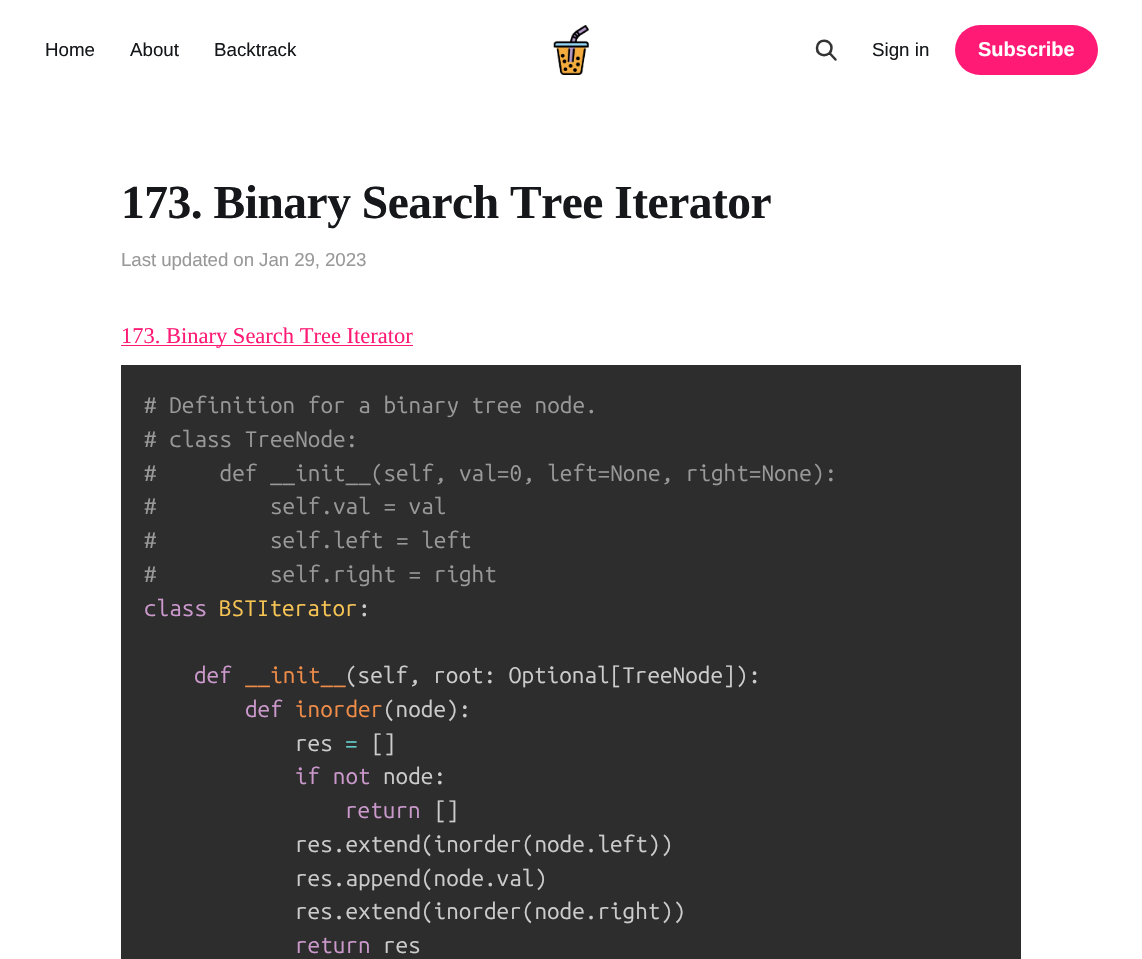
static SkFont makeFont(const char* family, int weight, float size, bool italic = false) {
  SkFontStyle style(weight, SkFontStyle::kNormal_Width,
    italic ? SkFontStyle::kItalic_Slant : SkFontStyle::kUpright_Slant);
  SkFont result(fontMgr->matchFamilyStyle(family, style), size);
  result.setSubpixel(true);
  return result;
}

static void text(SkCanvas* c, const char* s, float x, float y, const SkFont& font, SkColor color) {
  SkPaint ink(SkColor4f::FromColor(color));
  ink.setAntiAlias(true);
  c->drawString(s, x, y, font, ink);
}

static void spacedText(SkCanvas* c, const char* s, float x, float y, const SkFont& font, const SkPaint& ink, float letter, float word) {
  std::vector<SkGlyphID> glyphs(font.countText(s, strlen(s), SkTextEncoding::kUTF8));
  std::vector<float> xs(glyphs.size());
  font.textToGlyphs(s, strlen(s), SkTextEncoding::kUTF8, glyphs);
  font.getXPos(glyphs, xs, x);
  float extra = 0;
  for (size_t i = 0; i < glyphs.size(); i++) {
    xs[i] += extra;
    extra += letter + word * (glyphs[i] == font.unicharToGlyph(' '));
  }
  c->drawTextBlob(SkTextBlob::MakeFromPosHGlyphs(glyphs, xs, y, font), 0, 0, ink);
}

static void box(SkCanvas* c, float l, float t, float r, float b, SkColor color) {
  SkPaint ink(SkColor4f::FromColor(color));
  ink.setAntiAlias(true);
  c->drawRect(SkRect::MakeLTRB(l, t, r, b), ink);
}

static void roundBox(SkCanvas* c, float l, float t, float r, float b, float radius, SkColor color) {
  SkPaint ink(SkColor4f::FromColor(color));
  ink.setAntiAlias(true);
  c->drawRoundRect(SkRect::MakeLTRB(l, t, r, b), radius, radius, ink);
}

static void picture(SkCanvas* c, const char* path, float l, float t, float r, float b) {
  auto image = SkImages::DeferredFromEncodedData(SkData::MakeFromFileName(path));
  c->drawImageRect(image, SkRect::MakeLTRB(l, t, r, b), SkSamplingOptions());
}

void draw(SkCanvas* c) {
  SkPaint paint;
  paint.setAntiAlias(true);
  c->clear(0xffffffff);
  SkFont face1 = makeFont("Liberation Sans", 400, 18.75f);
  text(c, "Home", 45, 56, face1, 0xff15171a);
  text(c, "About", 130, 56, face1, 0xff15171a);
  text(c, "Backtrack", 214, 56, face1, 0xff15171a);
  picture(c, "img_01.png", 553, 25, 589, 75);
  paint.setStyle(SkPaint::kStroke_Style);
  paint.setStrokeWidth(2.5f);
  paint.setStrokeCap(SkPaint::kRound_Cap);
  paint.setStrokeJoin(SkPaint::kRound_Join);
  paint.setColor(0xff333333);
  c->drawPath(SkPathBuilder().moveTo(835.5f, 59.5f).lineTo(829.5f, 53).close().moveTo(831.5f, 48).cubicTo(831.5f, 57.5f, 816.5f, 57.5f, 817, 48).cubicTo(817, 38, 831.5f, 38.5f, 831.5f, 48).close().detach(), paint);
  text(c, "Sign in", 872, 56, face1, 0xff15171a);
  roundBox(c, 955, 25, 1098, 75, 25, 0xffff1a75);
  SkFont face2 = makeFont("Liberation Sans", 700, 20);
  text(c, "Subscribe", 978, 56, face2, 0xffffffff);
  SkFont face3 = makeFont("Liberation Serif", 700, 47.5f);
  paint.setStyle(SkPaint::kFill_Style);
  paint.setColor(0xff15171a);
  spacedText(c, "173. Binary Search Tree Iterator", 121, 218, face3, paint, -0.5f, 0);
  paint.setColor(0xff999999);
  spacedText(c, "Last updated on Jan 29, 2023", 121, 266, face1, paint, -0.1f, 0);
  box(c, 121, 345, 413, 346, 0xffff1a75);
  SkFont face4 = makeFont("Liberation Serif", 400, 22.5f);
  text(c, "173. Binary Search Tree Iterator", 121, 343, face4, 0xffff1a75);
  box(c, 121, 365, 1021, 959, 0xff2d2d2d);
  SkFont face5 = makeFont("Ubuntu Mono", 400, 22.5f);
  text(c, "# Definition for a binary tree node.", 144, 413, face5, 0xff999999);
  text(c, "# class TreeNode:", 144, 447, face5, 0xff999999);
  text(c, "#     def __init__(self, val=0, left=None, right=None):", 144, 481, face5, 0xff999999);
  text(c, "#         self.val = val", 144, 514, face5, 0xff999999);
  text(c, "#         self.left = left", 144, 548, face5, 0xff999999);
  text(c, "#         self.right = right", 144, 582, face5, 0xff999999);
  text(c, "class", 144, 616, face5, 0xffcc99cd);
  text(c, "BSTIterator", 219, 616, face5, 0xfff8c555);
  text(c, ":", 358, 616, face5, 0xffcccccc);
  text(c, "def", 194, 683, face5, 0xffcc99cd);
  text(c, "__init__", 245, 683, face5, 0xfff08d49);
  text(c, "(self, root: Optional[TreeNode]):", 345, 683, face5, 0xffcccccc);
  text(c, "def", 245, 717, face5, 0xffcc99cd);
  text(c, "inorder", 295, 717, face5, 0xfff08d49);
  text(c, "(node):", 383, 717, face5, 0xffcccccc);
  text(c, "res", 295, 751, face5, 0xffcccccc);
  text(c, "=", 345, 751, face5, 0xff67cdcc);
  text(c, "[]", 371, 751, face5, 0xffcccccc);
  text(c, "if not", 295, 784, face5, 0xffcc99cd);
  text(c, "node:", 383, 784, face5, 0xffcccccc);
  text(c, "return", 345, 818, face5, 0xffcc99cd);
  text(c, "[]", 434, 818, face5, 0xffcccccc);
  text(c, "res.extend(inorder(node.left))", 295, 852, face5, 0xffcccccc);
  text(c, "res.append(node.val)", 295, 886, face5, 0xffcccccc);
  text(c, "res.extend(inorder(node.right))", 295, 919, face5, 0xffcccccc);
  text(c, "return", 295, 953, face5, 0xffcc99cd);
  text(c, "res", 383, 953, face5, 0xffcccccc);
}
